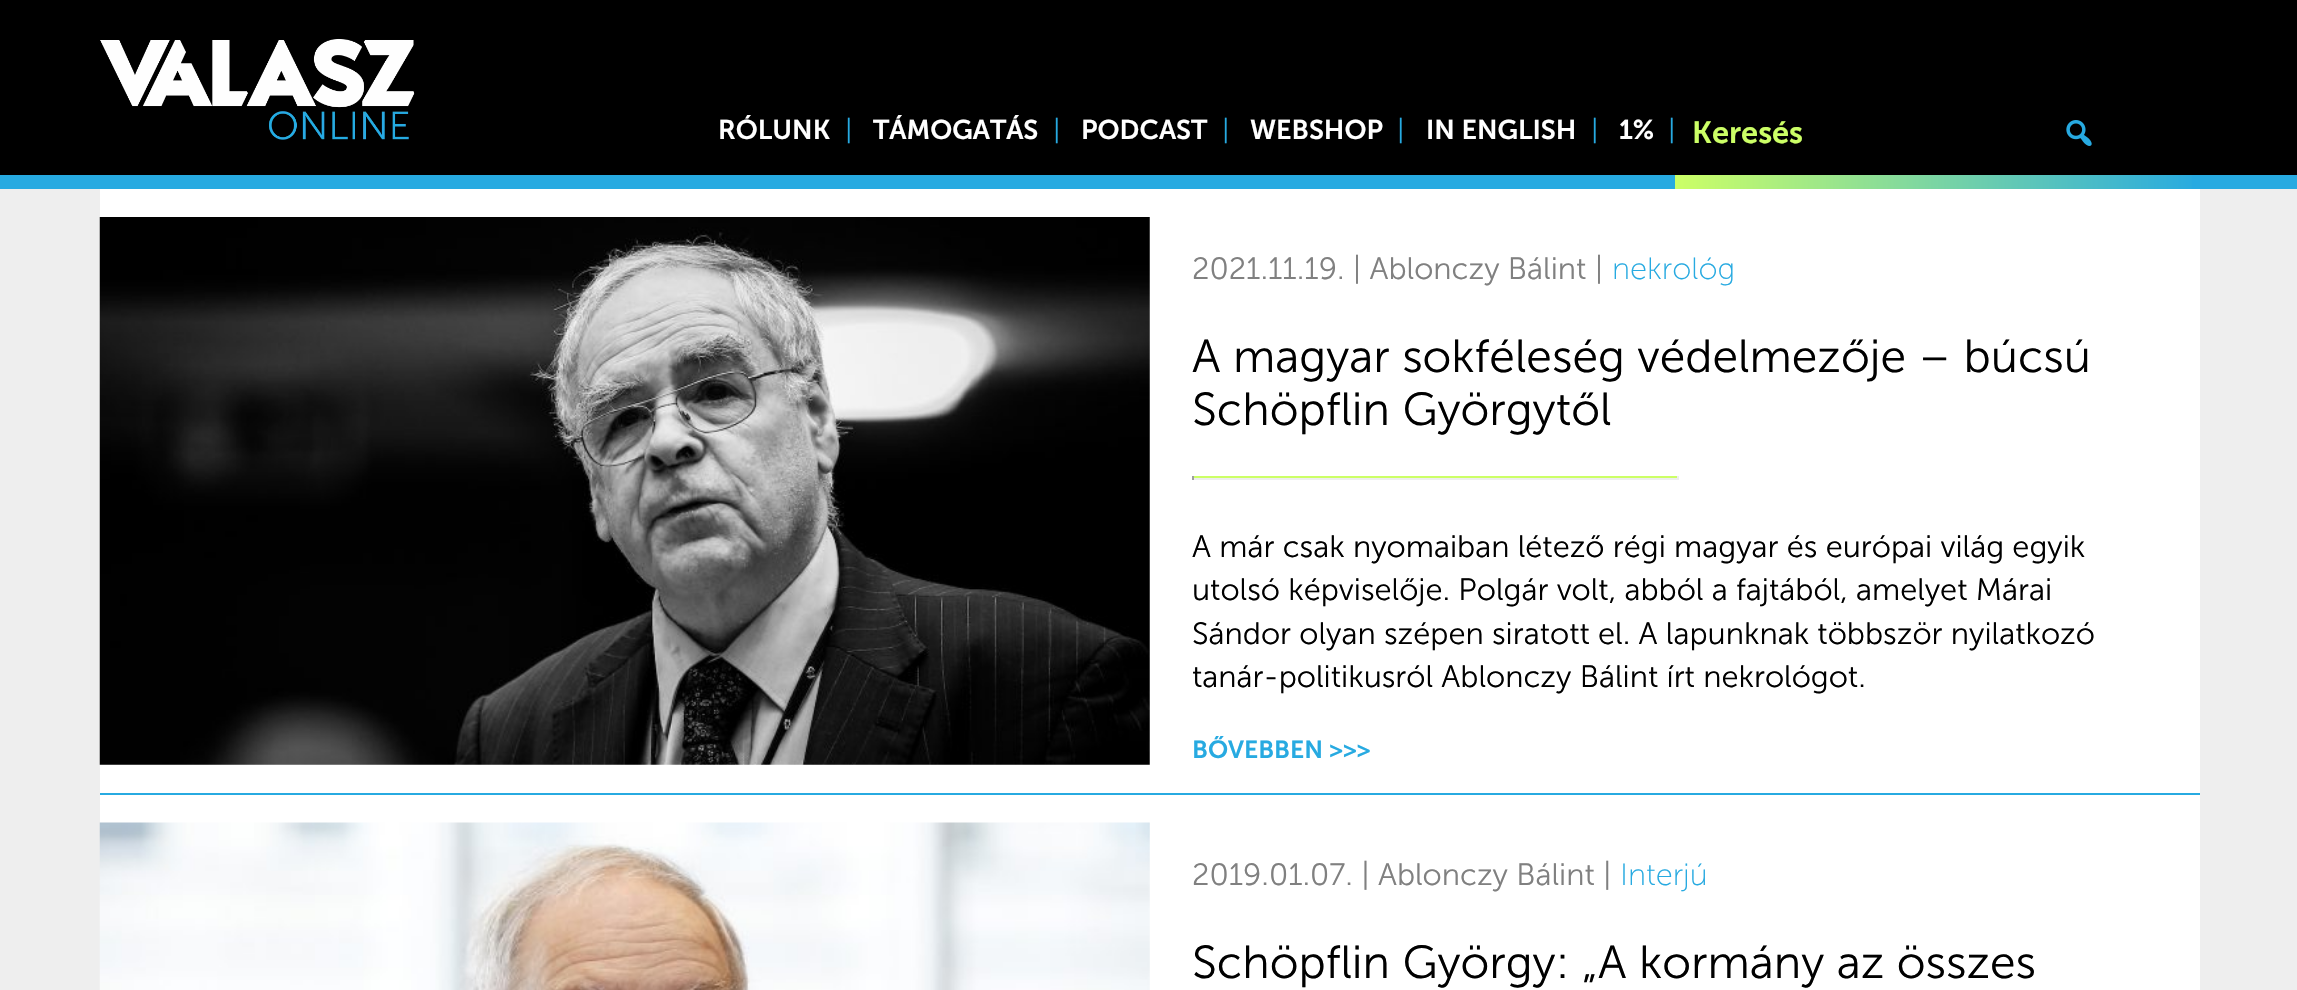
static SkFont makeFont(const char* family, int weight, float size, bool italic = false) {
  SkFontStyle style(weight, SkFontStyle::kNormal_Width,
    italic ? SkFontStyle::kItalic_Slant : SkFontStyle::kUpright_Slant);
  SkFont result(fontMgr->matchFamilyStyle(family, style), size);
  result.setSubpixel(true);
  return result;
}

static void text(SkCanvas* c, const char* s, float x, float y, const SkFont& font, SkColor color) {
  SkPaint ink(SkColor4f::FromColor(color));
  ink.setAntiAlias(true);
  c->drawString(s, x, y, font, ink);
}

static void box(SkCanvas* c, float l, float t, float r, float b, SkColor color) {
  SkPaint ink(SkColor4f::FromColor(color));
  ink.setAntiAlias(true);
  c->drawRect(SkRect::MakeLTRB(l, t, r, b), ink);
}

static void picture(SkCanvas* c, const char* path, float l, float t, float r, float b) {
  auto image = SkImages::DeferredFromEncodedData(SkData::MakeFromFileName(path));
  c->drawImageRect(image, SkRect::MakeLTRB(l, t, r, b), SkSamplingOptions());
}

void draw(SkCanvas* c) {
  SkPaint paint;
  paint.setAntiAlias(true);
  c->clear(0xffeeeeee);
  box(c, 0, 0, 2297, 175, 0xff000000);
  picture(c, "img_01.png", 100, 38, 415, 140);
  SkFont face1 = makeFont("Museo Sans", 600, 27);
  text(c, "RÓLUNK", 718, 139, face1, 0xffffffff);
  SkFont face2 = makeFont("Museo Sans", 300, 27);
  text(c, "|", 845, 139, face2, 0xff27aae1);
  text(c, "TÁMOGATÁS", 873, 139, face1, 0xffffffff);
  text(c, "|", 1053, 139, face2, 0xff27aae1);
  text(c, "PODCAST", 1081, 139, face1, 0xffffffff);
  text(c, "|", 1222, 139, face2, 0xff27aae1);
  text(c, "WEBSHOP", 1250, 139, face1, 0xffffffff);
  text(c, "|", 1397, 139, face2, 0xff27aae1);
  text(c, "IN ENGLISH", 1426, 139, face1, 0xffffffff);
  text(c, "|", 1591, 139, face2, 0xff27aae1);
  text(c, "1%", 1619, 139, face1, 0xffffffff);
  text(c, "|", 1668, 139, face2, 0xff27aae1);
  SkFont face3 = makeFont("Museo Sans", 600, 30.8f);
  text(c, "Keresés", 1692, 143, face3, 0xffccff66);
  picture(c, "img_02.png", 2066, 120, 2092, 146);
  box(c, 0, 175, 2297, 189, 0xff27aae1);
  {
    const SkColor colors[] = {0xffccff66, 0xff27aae1};
    const float stops[] = {0, 1};
    const SkPoint ends[] = {{1675, 182}, {2200, 182}};
    paint.setShader(SkGradientShader::MakeLinear(ends, colors, stops, 2, SkTileMode::kClamp));
    paint.setAlpha(255);
  }
  c->drawRect(SkRect::MakeLTRB(1675, 175, 2192, 189), paint);
  box(c, 100, 189, 2200, 990, 0xffffffff);
  box(c, 100, 793, 2200, 795, 0xff27aae1);
  picture(c, "img_03.png", 99, 217, 1150, 765);
  SkFont face4 = makeFont("Museo Sans", 300, 30.8f);
  text(c, "2021.11.19. | Ablonczy Bálint |", 1192, 279, face4, 0xff808080);
  SkFont face5 = makeFont("Museo Sans", 200, 30.8f);
  text(c, "nekrológ", 1612, 279, face5, 0xff27aae1);
  SkFont face6 = makeFont("Museo Sans", 300, 46.25f);
  text(c, "A magyar sokféleség védelmezője – búcsú", 1192, 372, face6, 0xff000000);
  text(c, "Schöpflin Györgytől", 1192, 425, face6, 0xff000000);
  box(c, 1192, 476, 1678, 478, 0xffccff66);
  box(c, 1677, 476, 1679, 480, 0xffeeeeee);
  box(c, 1192, 478, 1678, 480, 0xffeeeeee);
  box(c, 1192, 476, 1194, 480, 0xff9f9f9f);
  text(c, "A már csak nyomaiban létező régi magyar és európai világ egyik", 1192, 557, face4, 0xff000000);
  text(c, "utolsó képviselője. Polgár volt, abból a fajtából, amelyet Márai", 1192, 600, face4, 0xff000000);
  text(c, "Sándor olyan szépen siratott el. A lapunknak többször nyilatkozó", 1192, 644, face4, 0xff000000);
  text(c, "tanár-politikusról Ablonczy Bálint írt nekrológot.", 1192, 687, face4, 0xff000000);
  SkFont face7 = makeFont("Museo Sans", 600, 24.75f);
  text(c, "BŐVEBBEN >>>", 1192, 758, face7, 0xff27aae1);
  picture(c, "img_04.png", 99, 822, 1150, 990);
  text(c, "2019.01.07. | Ablonczy Bálint |", 1192, 885, face4, 0xff808080);
  text(c, "Interjú", 1620, 885, face5, 0xff27aae1);
  text(c, "Schöpflin György: „A kormány az összes", 1192, 978, face6, 0xff000000);
}
